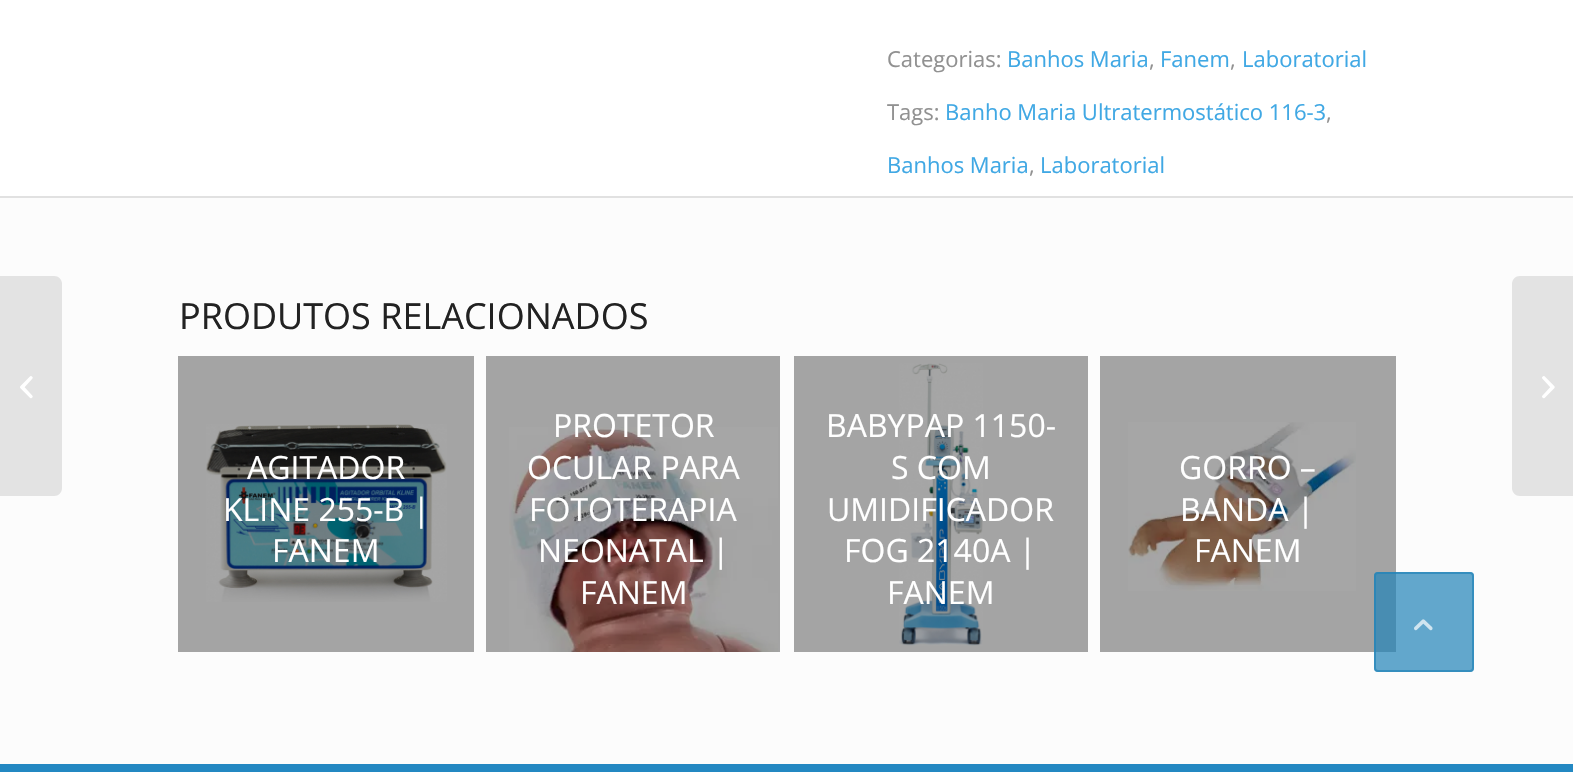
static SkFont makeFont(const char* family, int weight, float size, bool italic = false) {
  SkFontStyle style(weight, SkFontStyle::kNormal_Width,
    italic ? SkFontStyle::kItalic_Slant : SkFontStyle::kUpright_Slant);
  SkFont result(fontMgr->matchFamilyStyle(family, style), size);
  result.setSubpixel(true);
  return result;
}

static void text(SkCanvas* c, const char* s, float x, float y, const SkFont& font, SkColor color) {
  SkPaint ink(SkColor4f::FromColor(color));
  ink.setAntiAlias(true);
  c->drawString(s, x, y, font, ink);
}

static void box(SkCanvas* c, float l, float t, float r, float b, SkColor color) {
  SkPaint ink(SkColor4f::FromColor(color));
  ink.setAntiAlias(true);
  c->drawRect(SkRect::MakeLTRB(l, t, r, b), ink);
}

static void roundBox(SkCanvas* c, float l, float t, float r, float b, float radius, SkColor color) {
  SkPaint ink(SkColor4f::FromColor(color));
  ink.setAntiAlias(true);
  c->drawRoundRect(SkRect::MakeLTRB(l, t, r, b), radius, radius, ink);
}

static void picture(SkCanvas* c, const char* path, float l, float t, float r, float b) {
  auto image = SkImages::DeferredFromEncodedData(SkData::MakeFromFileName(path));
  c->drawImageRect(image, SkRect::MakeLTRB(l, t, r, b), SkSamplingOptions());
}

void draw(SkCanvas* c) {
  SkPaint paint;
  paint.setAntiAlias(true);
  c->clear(0xffffffff);
  box(c, 0, 198, 1573, 764, 0xfffcfcfc);
  paint.setColor(0xffe3e3e3);
  c->drawPath(SkPathBuilder().moveTo(0, 276).lineTo(54, 276).cubicTo(58.5f, 276, 62, 279.5f, 62, 284).lineTo(62, 488).cubicTo(62, 492.5f, 58.5f, 496, 54, 496).lineTo(0, 496).close().detach(), paint);
  picture(c, "img_01.png", 20, 376, 33, 399);
  SkFont face1 = makeFont("Open Sans", 400, 22);
  text(c, "Categorias:", 887, 67, face1, 0xff919191);
  text(c, "Banhos Maria", 1007, 67, face1, 0xff40a8e4);
  text(c, ",", 1149, 67, face1, 0xff919191);
  text(c, "Fanem", 1160, 67, face1, 0xff40a8e4);
  text(c, ",", 1230, 67, face1, 0xff919191);
  text(c, "Laboratorial", 1242, 67, face1, 0xff40a8e4);
  text(c, "Tags:", 887, 120, face1, 0xff919191);
  text(c, "Banho Maria Ultratermostático 116-3", 945, 120, face1, 0xff40a8e4);
  text(c, ",", 1326, 120, face1, 0xff919191);
  text(c, "Banhos Maria", 887, 173, face1, 0xff40a8e4);
  text(c, ",", 1029, 173, face1, 0xff919191);
  text(c, "Laboratorial", 1040, 173, face1, 0xff40a8e4);
  box(c, 1100, 356, 1396, 652, 0xffa4a4a4);
  box(c, 794, 356, 1088, 652, 0xffa4a4a4);
  box(c, 486, 356, 780, 652, 0xffa4a4a4);
  box(c, 178, 356, 474, 652, 0xffa4a4a4);
  box(c, 0, 196, 1573, 198, 0xffe1e1e1);
  SkFont face2 = makeFont("Open Sans", 400, 36);
  text(c, "PRODUTOS RELACIONADOS", 179, 329, face2, 0xff222222);
  picture(c, "img_02.png", 206, 424, 447, 602);
  SkFont face3 = makeFont("Open Sans", 400, 32);
  text(c, "AGITADOR", 247, 479, face3, 0xffffffff);
  text(c, "KLINE 255-B |", 223, 521, face3, 0xffffffff);
  text(c, "FANEM", 272, 562, face3, 0xffffffff);
  picture(c, "img_03.png", 509, 427, 778, 652);
  text(c, "PROTETOR", 553, 437, face3, 0xffffffff);
  text(c, "OCULAR PARA", 527, 479, face3, 0xffffffff);
  text(c, "FOTOTERAPIA", 529, 521, face3, 0xffffffff);
  text(c, "NEONATAL |", 538, 562, face3, 0xffffffff);
  text(c, "FANEM", 580, 604, face3, 0xffffffff);
  picture(c, "img_04.png", 899, 363, 983, 646);
  text(c, "BABYPAP 1150-", 826, 437, face3, 0xffffffff);
  text(c, "S COM", 891, 479, face3, 0xffffffff);
  text(c, "UMIDIFICADOR", 827, 521, face3, 0xffffffff);
  text(c, "FOG 2140A |", 844, 562, face3, 0xffffffff);
  text(c, "FANEM", 887, 604, face3, 0xffffffff);
  picture(c, "img_05.png", 1128, 422, 1356, 591);
  text(c, "GORRO –", 1179, 479, face3, 0xffffffff);
  text(c, "BANDA |", 1180, 521, face3, 0xffffffff);
  text(c, "FANEM", 1194, 562, face3, 0xffffffff);
  box(c, 0, 764, 1573, 772, 0xff2388c2);
  c->drawPath(SkPathBuilder().moveTo(1520, 276).lineTo(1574, 276).lineTo(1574, 496).lineTo(1520, 496).cubicTo(1515.5f, 496, 1512, 492.5f, 1512, 488).lineTo(1512, 284).cubicTo(1512, 279.5f, 1515.5f, 276, 1520, 276).close().detach(), paint);
  picture(c, "img_06.png", 1542, 376, 1555, 399);
  roundBox(c, 1374, 572, 1474, 672, 4, 0xb32183b8);
  paint.setStyle(SkPaint::kStroke_Style);
  paint.setStrokeWidth(2);
  paint.setColor(0xb32183b8);
  c->drawRoundRect(SkRect::MakeLTRB(1375, 573, 1473, 671), 3, 3, paint);
  picture(c, "img_07.png", 1414, 619, 1433, 631);
}
